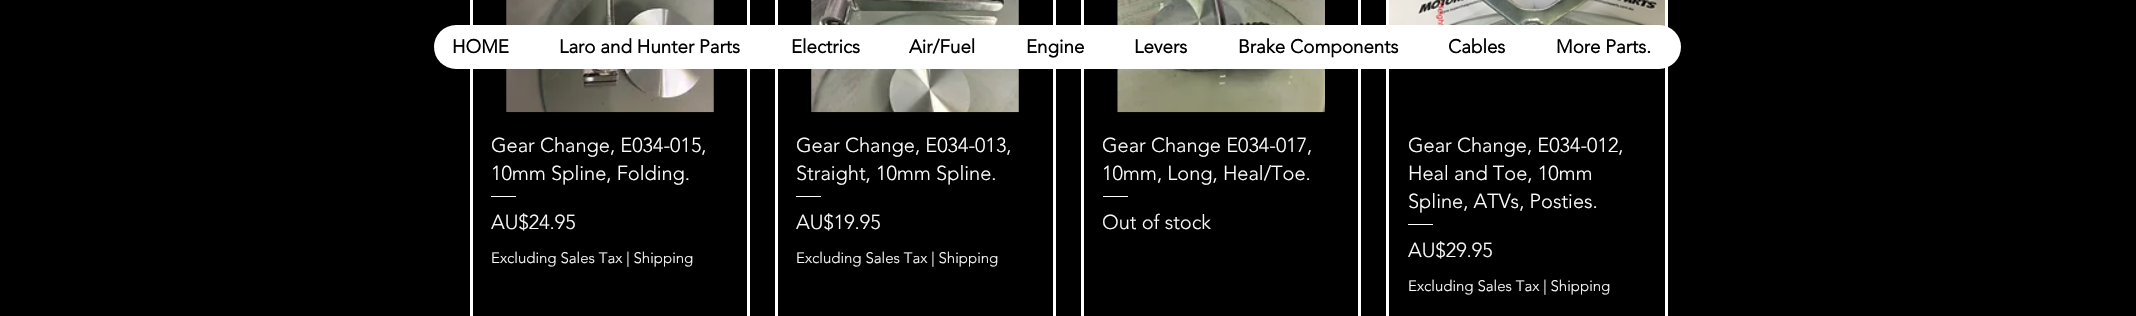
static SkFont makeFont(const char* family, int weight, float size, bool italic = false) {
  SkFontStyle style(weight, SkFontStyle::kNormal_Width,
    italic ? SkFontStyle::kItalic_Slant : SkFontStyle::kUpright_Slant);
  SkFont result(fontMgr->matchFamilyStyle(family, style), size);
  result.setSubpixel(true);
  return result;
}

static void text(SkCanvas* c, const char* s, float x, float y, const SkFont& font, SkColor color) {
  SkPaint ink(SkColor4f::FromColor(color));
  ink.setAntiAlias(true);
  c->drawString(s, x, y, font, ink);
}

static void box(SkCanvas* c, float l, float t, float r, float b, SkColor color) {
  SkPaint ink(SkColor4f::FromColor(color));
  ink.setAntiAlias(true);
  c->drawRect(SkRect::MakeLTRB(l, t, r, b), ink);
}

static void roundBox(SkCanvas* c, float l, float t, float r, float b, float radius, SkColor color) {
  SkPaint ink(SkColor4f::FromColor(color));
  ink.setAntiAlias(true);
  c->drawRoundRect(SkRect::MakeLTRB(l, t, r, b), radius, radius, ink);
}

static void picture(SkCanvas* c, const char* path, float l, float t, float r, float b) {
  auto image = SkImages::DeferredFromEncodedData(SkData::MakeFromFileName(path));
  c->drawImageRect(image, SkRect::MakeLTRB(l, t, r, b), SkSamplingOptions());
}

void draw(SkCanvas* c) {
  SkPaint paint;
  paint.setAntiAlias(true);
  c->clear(0xff000000);
  paint.setStyle(SkPaint::kStroke_Style);
  paint.setStrokeWidth(3);
  paint.setColor(0xffffffff);
  c->drawRect(SkRect::MakeLTRB(471.5f, -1.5f, 748.5f, 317.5f), paint);
  picture(c, "img_01.png", 506, 0, 714, 113);
  c->drawRect(SkRect::MakeLTRB(776.5f, -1.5f, 1054.5f, 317.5f), paint);
  picture(c, "img_02.png", 811, 0, 1019, 113);
  c->drawRect(SkRect::MakeLTRB(1082.5f, -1.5f, 1359.5f, 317.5f), paint);
  picture(c, "img_03.png", 1117, 0, 1325, 113);
  c->drawRect(SkRect::MakeLTRB(1387.5f, -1.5f, 1666.5f, 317.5f), paint);
  picture(c, "img_04.png", 1389, 0, 1665, 26);
  roundBox(c, 434, 25, 1681, 69, 22, 0xffffffff);
  SkFont face1 = makeFont("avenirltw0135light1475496", 700, 18.75f);
  text(c, "HOME", 452, 53, face1, 0xff000000);
  text(c, "Laro and Hunter Parts", 559, 53, face1, 0xff000000);
  text(c, "Electrics", 791, 53, face1, 0xff000000);
  text(c, "Air/Fuel", 909, 53, face1, 0xff000000);
  text(c, "Engine", 1026, 53, face1, 0xff000000);
  text(c, "Levers", 1134, 53, face1, 0xff000000);
  text(c, "Brake Components", 1238, 53, face1, 0xff000000);
  text(c, "Cables", 1448, 53, face1, 0xff000000);
  text(c, "More Parts.", 1556, 53, face1, 0xff000000);
  SkFont face2 = makeFont("avenirltw0135light1475496", 300, 20);
  text(c, "Gear Change, E034-015,", 491, 152, face2, 0xffffffff);
  text(c, "10mm Spline, Folding.", 491, 180, face2, 0xffffffff);
  box(c, 491, 196, 516, 197, 0xffffffff);
  text(c, "AU$24.95", 491, 229, face2, 0xfff9f9f9);
  SkFont face3 = makeFont("avenirltw0135light1475496", 300, 15);
  text(c, "Excluding Sales Tax | Shipping", 491, 263, face3, 0xfff9f9f9);
  text(c, "Gear Change, E034-013,", 796, 152, face2, 0xffffffff);
  text(c, "Straight, 10mm Spline.", 796, 180, face2, 0xffffffff);
  box(c, 796, 196, 821, 197, 0xffffffff);
  text(c, "AU$19.95", 796, 229, face2, 0xfff9f9f9);
  text(c, "Excluding Sales Tax | Shipping", 796, 263, face3, 0xfff9f9f9);
  text(c, "Gear Change E034-017,", 1102, 152, face2, 0xffffffff);
  text(c, "10mm, Long, Heal/Toe.", 1102, 180, face2, 0xffffffff);
  box(c, 1103, 196, 1128, 197, 0xffffffff);
  text(c, "Out of stock", 1102, 229, face2, 0xfff9f9f9);
  text(c, "Gear Change, E034-012,", 1408, 152, face2, 0xffffffff);
  text(c, "Heal and Toe, 10mm", 1408, 180, face2, 0xffffffff);
  text(c, "Spline, ATVs, Posties.", 1408, 208, face2, 0xffffffff);
  box(c, 1408, 224, 1433, 225, 0xffffffff);
  text(c, "AU$29.95", 1408, 257, face2, 0xfff9f9f9);
  text(c, "Excluding Sales Tax | Shipping", 1408, 291, face3, 0xfff9f9f9);
}
